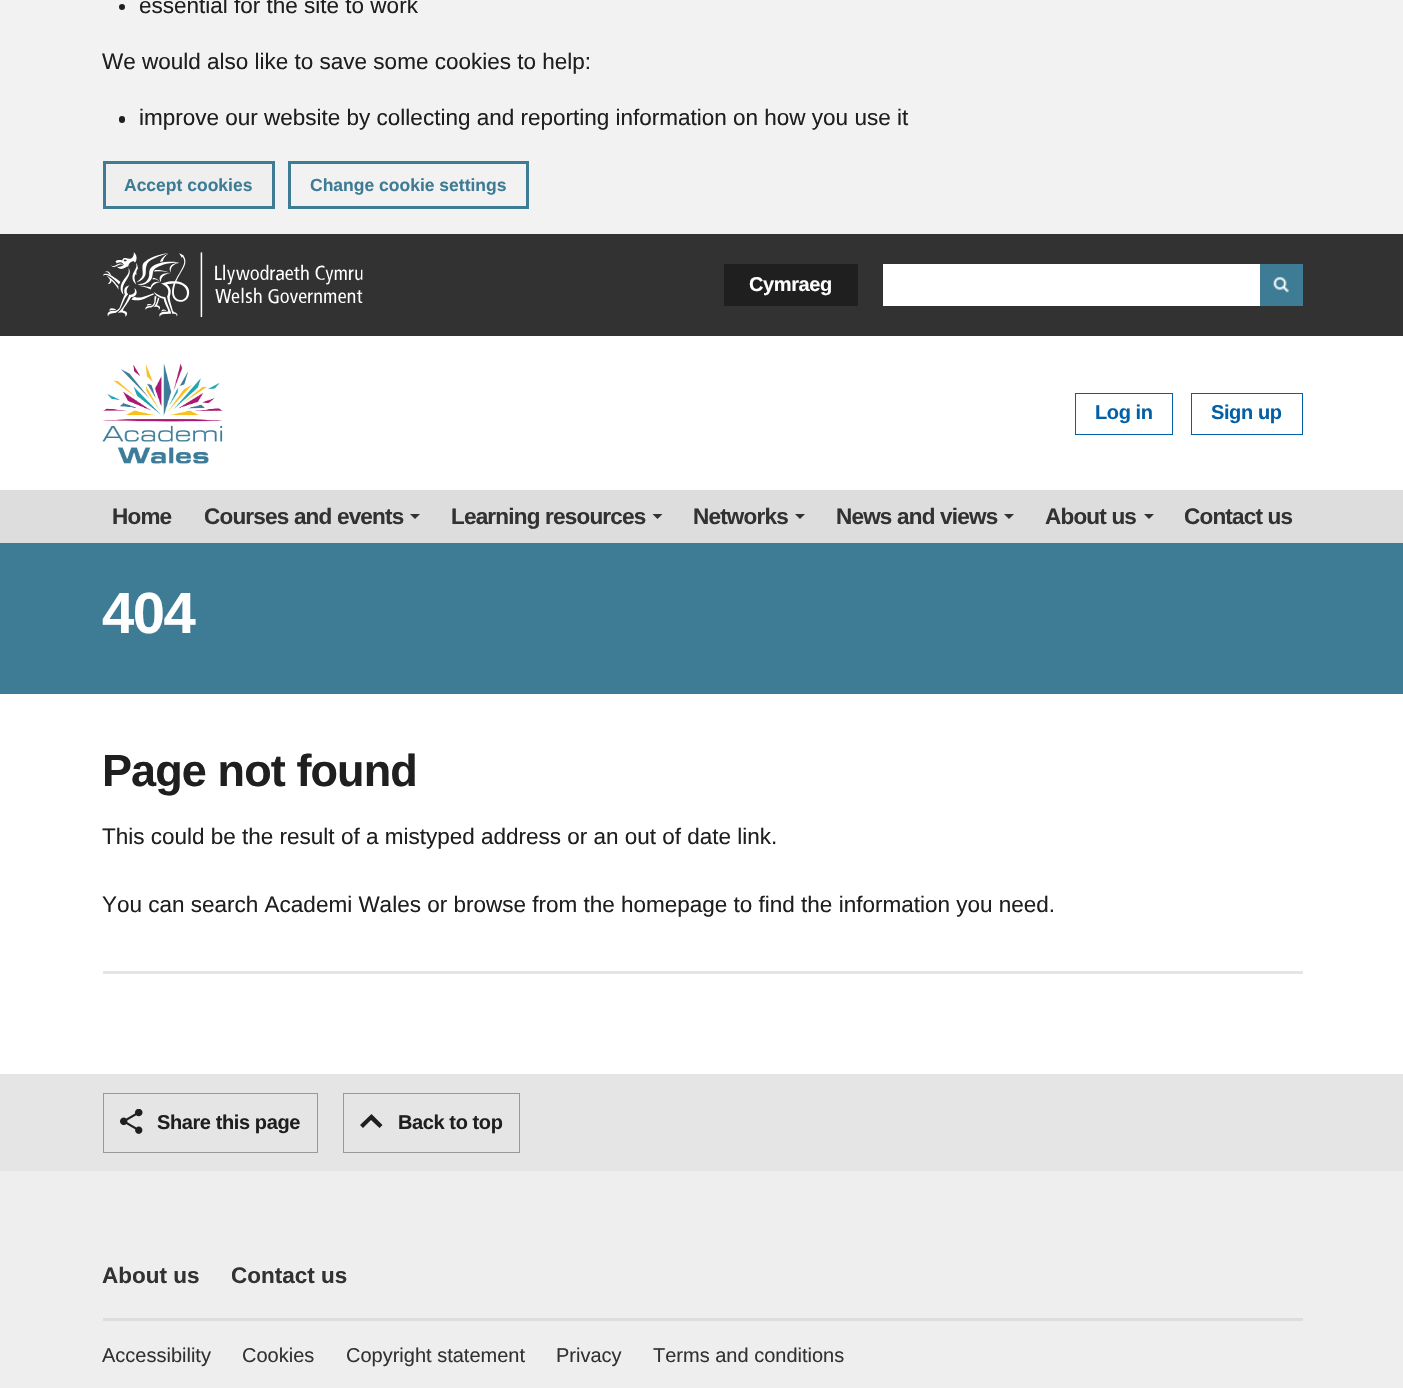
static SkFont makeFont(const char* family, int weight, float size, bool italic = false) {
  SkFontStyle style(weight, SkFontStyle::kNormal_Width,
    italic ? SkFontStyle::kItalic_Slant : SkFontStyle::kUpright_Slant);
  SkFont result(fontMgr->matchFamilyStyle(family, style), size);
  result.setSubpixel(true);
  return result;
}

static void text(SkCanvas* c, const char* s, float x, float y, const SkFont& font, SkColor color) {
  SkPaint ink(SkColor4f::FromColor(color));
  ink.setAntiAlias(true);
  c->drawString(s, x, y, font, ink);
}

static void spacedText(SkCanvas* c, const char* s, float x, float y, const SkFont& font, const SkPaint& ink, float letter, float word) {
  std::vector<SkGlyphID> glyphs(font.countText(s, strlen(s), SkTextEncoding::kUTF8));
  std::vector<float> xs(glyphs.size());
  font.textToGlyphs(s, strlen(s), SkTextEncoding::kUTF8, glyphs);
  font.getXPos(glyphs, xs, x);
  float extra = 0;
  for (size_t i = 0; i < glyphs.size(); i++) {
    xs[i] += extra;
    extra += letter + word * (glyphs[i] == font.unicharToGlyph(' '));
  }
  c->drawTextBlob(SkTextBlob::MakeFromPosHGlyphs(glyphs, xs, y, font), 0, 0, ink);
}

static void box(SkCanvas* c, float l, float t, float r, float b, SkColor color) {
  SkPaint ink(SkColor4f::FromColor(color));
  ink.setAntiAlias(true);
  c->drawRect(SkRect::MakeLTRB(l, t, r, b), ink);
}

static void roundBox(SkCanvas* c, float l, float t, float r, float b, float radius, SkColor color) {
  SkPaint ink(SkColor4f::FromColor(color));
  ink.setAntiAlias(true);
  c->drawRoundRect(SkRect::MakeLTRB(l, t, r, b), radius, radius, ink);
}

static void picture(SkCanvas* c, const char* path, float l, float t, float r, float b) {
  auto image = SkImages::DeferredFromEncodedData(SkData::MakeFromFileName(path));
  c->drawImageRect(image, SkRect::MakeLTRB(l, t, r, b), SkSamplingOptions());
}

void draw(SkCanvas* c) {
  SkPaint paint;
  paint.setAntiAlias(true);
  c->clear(0xfff2f2f2);
  paint.setColor(0xff1f1f1f);
  c->drawCircle(122, 7, 3, paint);
  SkFont face1 = makeFont("Liberation Sans", 400, 22.5f);
  text(c, "essential for the site to work", 139, 13, face1, 0xff1f1f1f);
  text(c, "We would also like to save some cookies to help:", 102, 69, face1, 0xff1f1f1f);
  roundBox(c, 119, 116, 125, 123, 3, 0xff1f1f1f);
  text(c, "improve our website by collecting and reporting information on how you use it", 139, 125, face1, 0xff1f1f1f);
  paint.setColor(0xffefefef);
  c->drawRect(SkRect::MakeLTRB(104.5f, 162.5f, 273.5f, 207.5f), paint);
  paint.setStyle(SkPaint::kStroke_Style);
  paint.setStrokeWidth(3);
  paint.setColor(0xff3e7c95);
  c->drawRect(SkRect::MakeLTRB(104.5f, 162.5f, 273.5f, 207.5f), paint);
  SkFont face2 = makeFont("Liberation Sans", 700, 17.5f);
  text(c, "Accept cookies", 124, 191, face2, 0xff3e7c95);
  c->drawRect(SkRect::MakeLTRB(289.5f, 162.5f, 527.5f, 207.5f), paint);
  text(c, "Change cookie settings", 310, 191, face2, 0xff3e7c95);
  box(c, 0, 336, 1403, 490, 0xffffffff);
  box(c, 0, 234, 1403, 336, 0xff323232);
  picture(c, "img_01.png", 103, 252, 363, 317);
  box(c, 724, 264, 858, 306, 0xff1f1f1f);
  SkFont face3 = makeFont("Liberation Sans", 700, 20);
  paint.setStyle(SkPaint::kFill_Style);
  paint.setColor(0xffffffff);
  spacedText(c, "Cymraeg", 749, 291, face3, paint, -0.4f, 0);
  box(c, 883, 264, 1260, 306, 0xffffffff);
  box(c, 1260, 264, 1303, 306, 0xff3e7c95);
  picture(c, "img_02.png", 1273, 277, 1289, 293);
  picture(c, "img_03.png", 102, 363, 223, 464);
  paint.setStyle(SkPaint::kStroke_Style);
  paint.setStrokeWidth(1);
  paint.setColor(0xff0360a6);
  c->drawRect(SkRect::MakeLTRB(1075.5f, 393.5f, 1172.5f, 434.5f), paint);
  paint.setStyle(SkPaint::kFill_Style);
  spacedText(c, "Log in", 1095, 419, face3, paint, -0.4f, 0);
  paint.setStyle(SkPaint::kStroke_Style);
  c->drawRect(SkRect::MakeLTRB(1191.5f, 393.5f, 1302.5f, 434.5f), paint);
  paint.setStyle(SkPaint::kFill_Style);
  spacedText(c, "Sign up", 1211, 419, face3, paint, -0.4f, 0);
  box(c, 0, 490, 1403, 543, 0xffdddddd);
  SkFont face4 = makeFont("Liberation Sans", 700, 22.5f);
  paint.setColor(0xff323232);
  spacedText(c, "Home", 112, 524, face4, paint, -0.8f, 0);
  spacedText(c, "Courses and events", 204, 524, face4, paint, -0.8f, 0);
  c->drawPath(SkPathBuilder().moveTo(410, 514).lineTo(420, 514).lineTo(415, 519).close().detach(), paint);
  spacedText(c, "Learning resources", 451, 524, face4, paint, -0.8f, 0);
  c->drawPath(SkPathBuilder().moveTo(652.5f, 514).lineTo(662.5f, 514).lineTo(657.5f, 519).close().detach(), paint);
  spacedText(c, "Networks", 693, 524, face4, paint, -0.8f, 0);
  c->drawPath(SkPathBuilder().moveTo(795, 514).lineTo(805, 514).lineTo(800, 519).close().detach(), paint);
  spacedText(c, "News and views", 836, 524, face4, paint, -0.8f, 0);
  c->drawPath(SkPathBuilder().moveTo(1004, 514).lineTo(1014, 514).lineTo(1009, 519).close().detach(), paint);
  spacedText(c, "About us", 1045, 524, face4, paint, -0.8f, 0);
  c->drawPath(SkPathBuilder().moveTo(1144, 514).lineTo(1154, 514).lineTo(1149, 519).close().detach(), paint);
  spacedText(c, "Contact us", 1184, 524, face4, paint, -0.8f, 0);
  box(c, 0, 694, 1403, 1074, 0xffffffff);
  box(c, 0, 543, 1403, 694, 0xff3e7c95);
  SkFont face5 = makeFont("Liberation Sans", 700, 58);
  paint.setColor(0xffffffff);
  spacedText(c, "404", 102, 633, face5, paint, -1.5f, 0);
  SkFont face6 = makeFont("Liberation Sans", 700, 45);
  paint.setColor(0xff1f1f1f);
  spacedText(c, "Page not found", 102, 786, face6, paint, -0.9f, 0);
  text(c, "This could be the result of a mistyped address or an out of date link.", 102, 844, face1, 0xff1f1f1f);
  text(c, "You can search Academi Wales or browse from the homepage to find the information you need.", 102, 912, face1, 0xff1f1f1f);
  box(c, 103, 971, 1303, 974, 0xffe5e5e5);
  box(c, 0, 1171, 1403, 1388, 0xffeeeeee);
  box(c, 0, 1074, 1403, 1171, 0xffe5e5e5);
  paint.setStyle(SkPaint::kStroke_Style);
  paint.setColor(0xff999999);
  c->drawRect(SkRect::MakeLTRB(103.5f, 1093.5f, 317.5f, 1152.5f), paint);
  picture(c, "img_04.png", 120, 1109, 143, 1134);
  paint.setStyle(SkPaint::kFill_Style);
  paint.setColor(0xff1f1f1f);
  spacedText(c, "Share this page", 157, 1129, face3, paint, -0.4f, 0);
  paint.setStyle(SkPaint::kStroke_Style);
  paint.setColor(0xff999999);
  c->drawRect(SkRect::MakeLTRB(343.5f, 1093.5f, 519.5f, 1152.5f), paint);
  paint.setStyle(SkPaint::kFill_Style);
  paint.setColor(0xff1f1f1f);
  c->drawPath(SkPathBuilder().moveTo(382.5f, 1125).lineTo(371.5f, 1114).lineTo(360, 1125).lineTo(363, 1128).lineTo(371, 1120).lineTo(379.5f, 1128).close().detach(), paint);
  spacedText(c, "Back to top", 398, 1129, face3, paint, -0.4f, 0);
  box(c, 103, 1318, 1303, 1321, 0xffdddddd);
  text(c, "About us", 102, 1283, face4, 0xff323232);
  text(c, "Contact us", 231, 1283, face4, 0xff323232);
  SkFont face7 = makeFont("Liberation Sans", 400, 20);
  text(c, "Accessibility", 102, 1362, face7, 0xff323232);
  text(c, "Cookies", 242, 1362, face7, 0xff323232);
  text(c, "Copyright statement", 346, 1362, face7, 0xff323232);
  text(c, "Privacy", 556, 1362, face7, 0xff323232);
  text(c, "Terms and conditions", 653, 1362, face7, 0xff323232);
}
